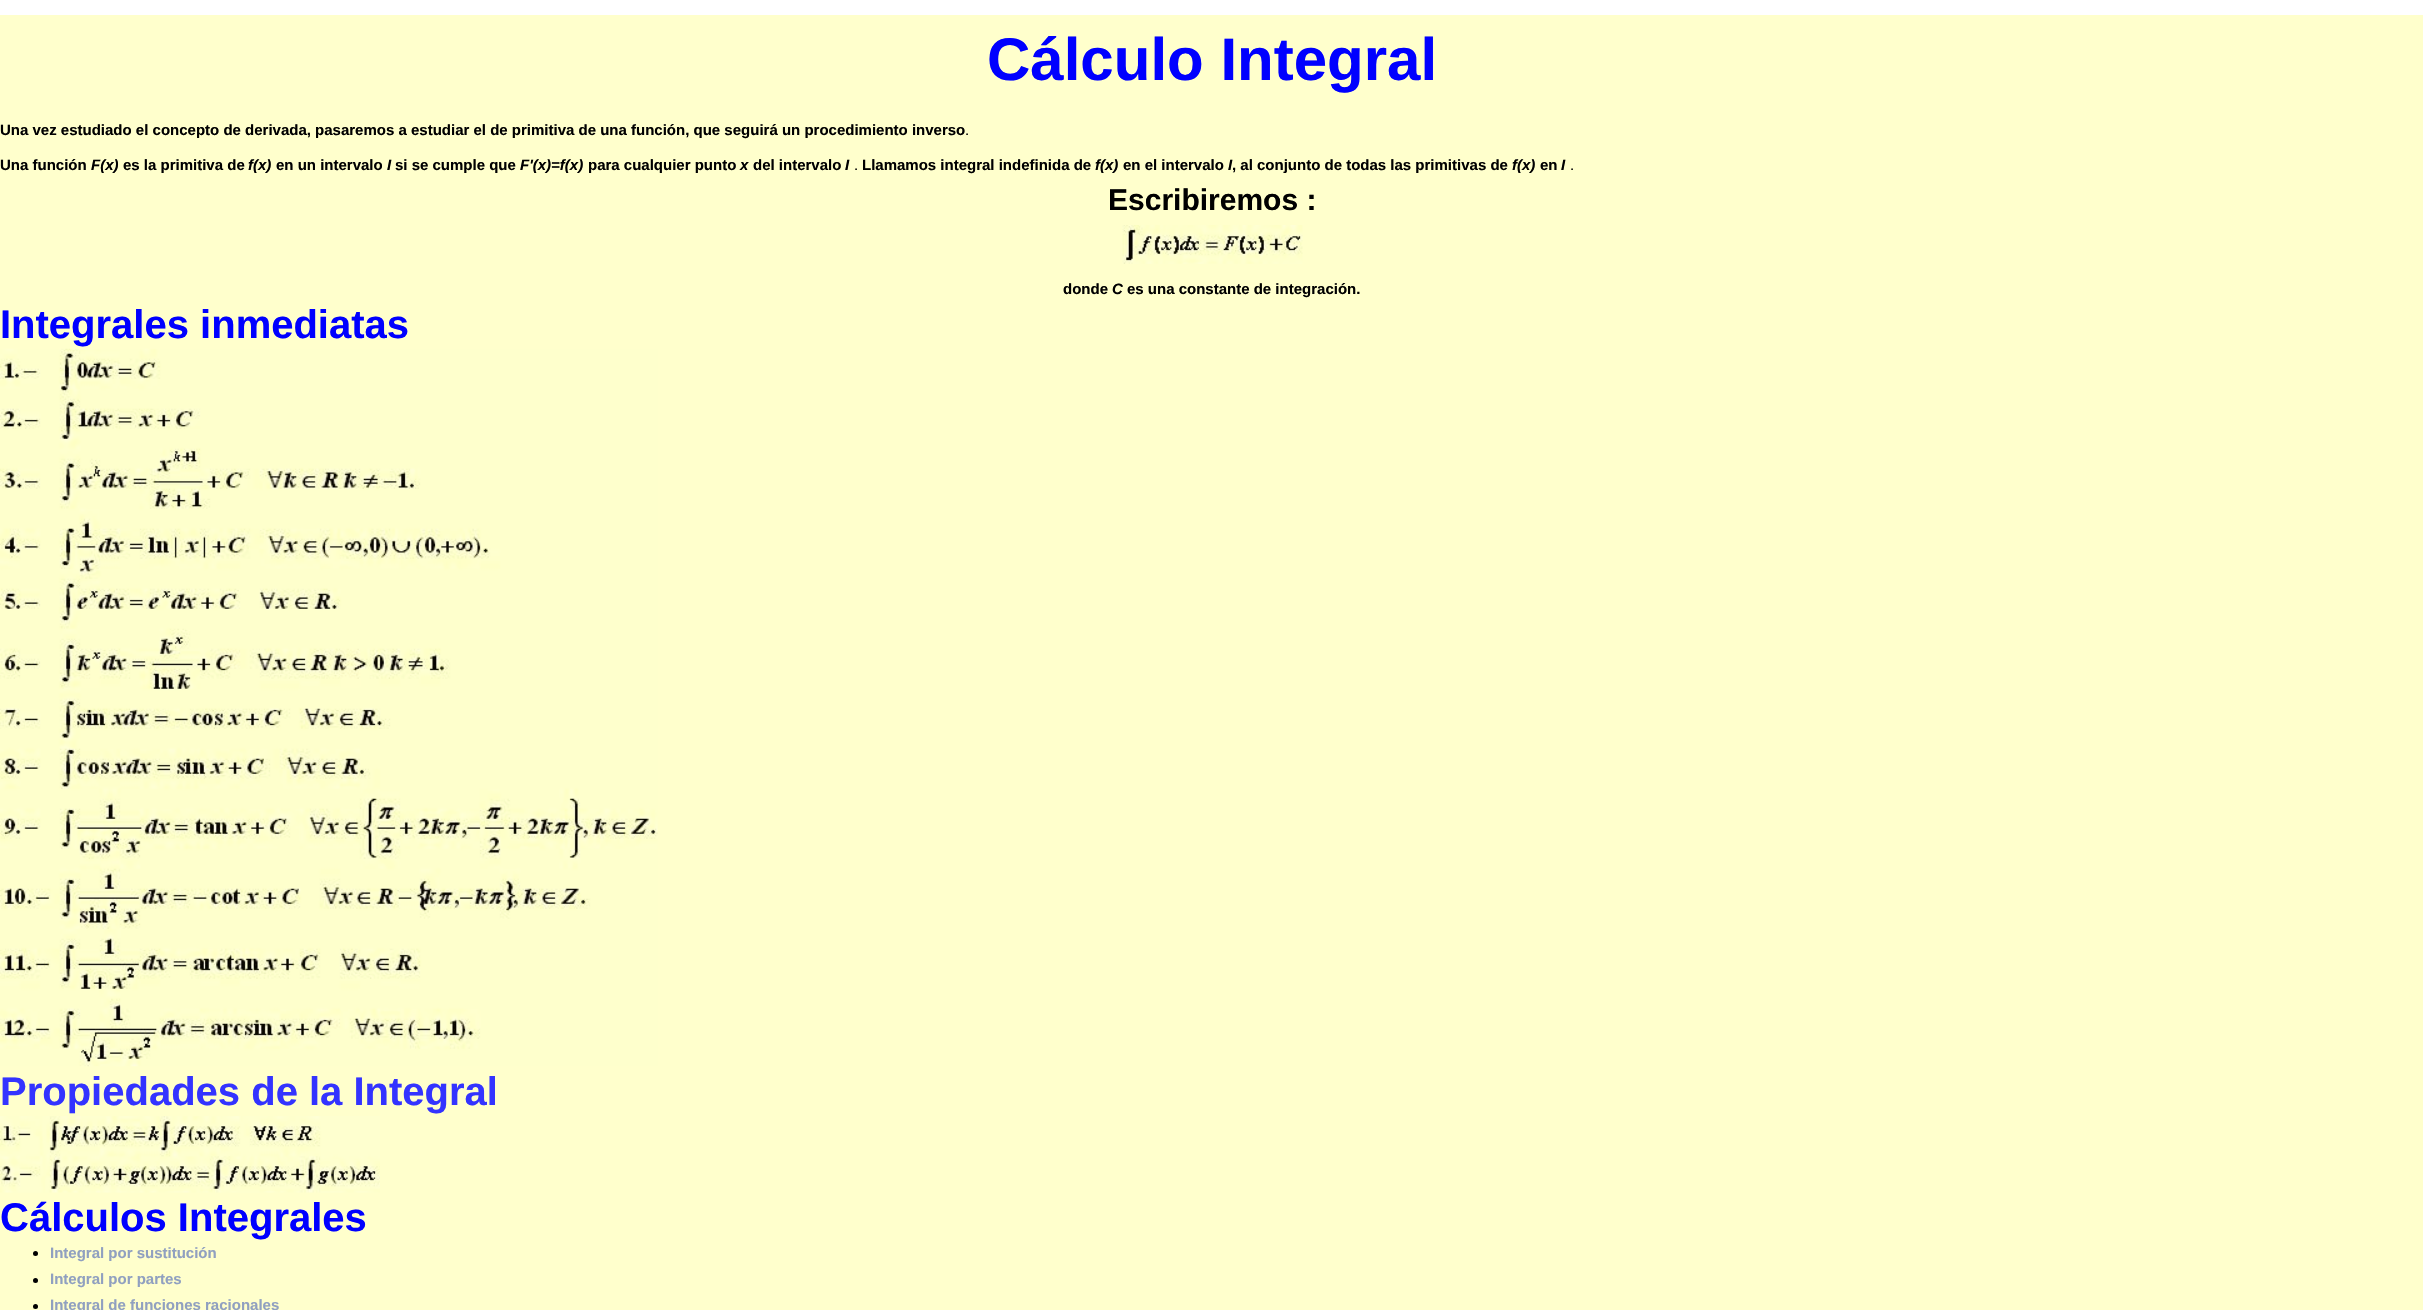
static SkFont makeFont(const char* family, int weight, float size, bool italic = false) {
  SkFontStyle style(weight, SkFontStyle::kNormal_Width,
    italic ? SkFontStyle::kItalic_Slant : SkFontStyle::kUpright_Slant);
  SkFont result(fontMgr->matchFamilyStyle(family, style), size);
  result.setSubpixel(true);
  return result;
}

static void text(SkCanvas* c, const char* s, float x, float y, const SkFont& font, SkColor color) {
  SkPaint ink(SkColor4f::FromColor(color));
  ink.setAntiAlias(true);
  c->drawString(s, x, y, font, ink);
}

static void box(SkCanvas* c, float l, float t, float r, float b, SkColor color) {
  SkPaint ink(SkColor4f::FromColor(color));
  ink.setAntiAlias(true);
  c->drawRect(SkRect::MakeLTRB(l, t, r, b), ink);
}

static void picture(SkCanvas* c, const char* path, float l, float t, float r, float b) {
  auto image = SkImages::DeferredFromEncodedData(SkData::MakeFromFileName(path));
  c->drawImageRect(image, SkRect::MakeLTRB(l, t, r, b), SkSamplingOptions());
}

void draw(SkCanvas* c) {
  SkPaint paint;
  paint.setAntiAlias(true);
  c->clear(0xffffffff);
  box(c, 0, 15, 2423, 1310, 0xffffffcc);
  SkFont face1 = makeFont("Liberation Sans", 700, 60);
  text(c, "Cálculo Integral", 987, 80, face1, 0xff0000ff);
  SkFont face2 = makeFont("Liberation Sans", 700, 15);
  text(c, "Una vez estudiado el concepto de derivada, pasaremos a estudiar el de primitiva de una función, que seguirá un procedimiento inverso", 0, 135, face2, 0xff000000);
  SkFont face3 = makeFont("Liberation Sans", 400, 15);
  text(c, ".", 965, 135, face3, 0xff000000);
  text(c, "Una función", 0, 170, face2, 0xff000000);
  SkFont face4 = makeFont("Liberation Sans", 700, 15, true);
  text(c, "F(x)", 91, 170, face4, 0xff000000);
  text(c, "es la primitiva de", 123, 170, face2, 0xff000000);
  text(c, "f(x)", 248, 170, face4, 0xff000000);
  text(c, "en un intervalo", 276, 170, face2, 0xff000000);
  text(c, "I", 387, 170, face4, 0xff000000);
  text(c, "si se cumple que", 395, 170, face2, 0xff000000);
  text(c, "F'(x)=f(x)", 520, 170, face4, 0xff000000);
  text(c, "para cualquier punto", 588, 170, face2, 0xff000000);
  text(c, "x", 740, 170, face4, 0xff000000);
  text(c, "del intervalo", 753, 170, face2, 0xff000000);
  text(c, "I", 845, 170, face4, 0xff000000);
  text(c, ".", 854, 170, face3, 0xff000000);
  text(c, "Llamamos integral indefinida de", 862, 170, face2, 0xff000000);
  text(c, "f(x)", 1095, 170, face4, 0xff000000);
  text(c, "en el intervalo", 1123, 170, face2, 0xff000000);
  text(c, "I", 1228, 170, face4, 0xff000000);
  text(c, ", al conjunto de todas las primitivas de", 1232, 170, face2, 0xff000000);
  text(c, "f(x)", 1512, 170, face4, 0xff000000);
  text(c, "en", 1540, 170, face2, 0xff000000);
  text(c, "I", 1561, 170, face4, 0xff000000);
  text(c, ".", 1570, 170, face3, 0xff000000);
  SkFont face5 = makeFont("Liberation Sans", 700, 30);
  text(c, "Escribiremos :", 1108, 210, face5, 0xff000000);
  picture(c, "img_01.png", 1122, 225, 1303, 264);
  text(c, "donde", 1063, 294, face2, 0xff000000);
  text(c, "C", 1112, 294, face4, 0xff000000);
  text(c, "es una constante de integración.", 1127, 294, face2, 0xff000000);
  SkFont face6 = makeFont("Liberation Sans", 700, 40);
  text(c, "Integrales inmediatas", 0, 338, face6, 0xff0000ff);
  picture(c, "img_02.png", 0, 348, 658, 1067);
  text(c, "Propiedades de la Integral", 0, 1105, face6, 0xff3333ff);
  picture(c, "img_03.png", 0, 1116, 380, 1193);
  text(c, "Cálculos Integrales", 0, 1231, face6, 0xff0000ff);
  paint.setColor(0xff000000);
  c->drawCircle(35.5f, 1253.5f, 2.5f, paint);
  text(c, "Integral por sustitución", 50, 1258, face2, 0xff90a0c0);
  c->drawCircle(35.5f, 1280.5f, 2.5f, paint);
  text(c, "Integral por partes", 50, 1284, face2, 0xff90a0c0);
  c->drawCircle(35.5f, 1306.5f, 2.5f, paint);
  text(c, "Integral de funciones racionales", 50, 1310, face2, 0xff90a0c0);
}
